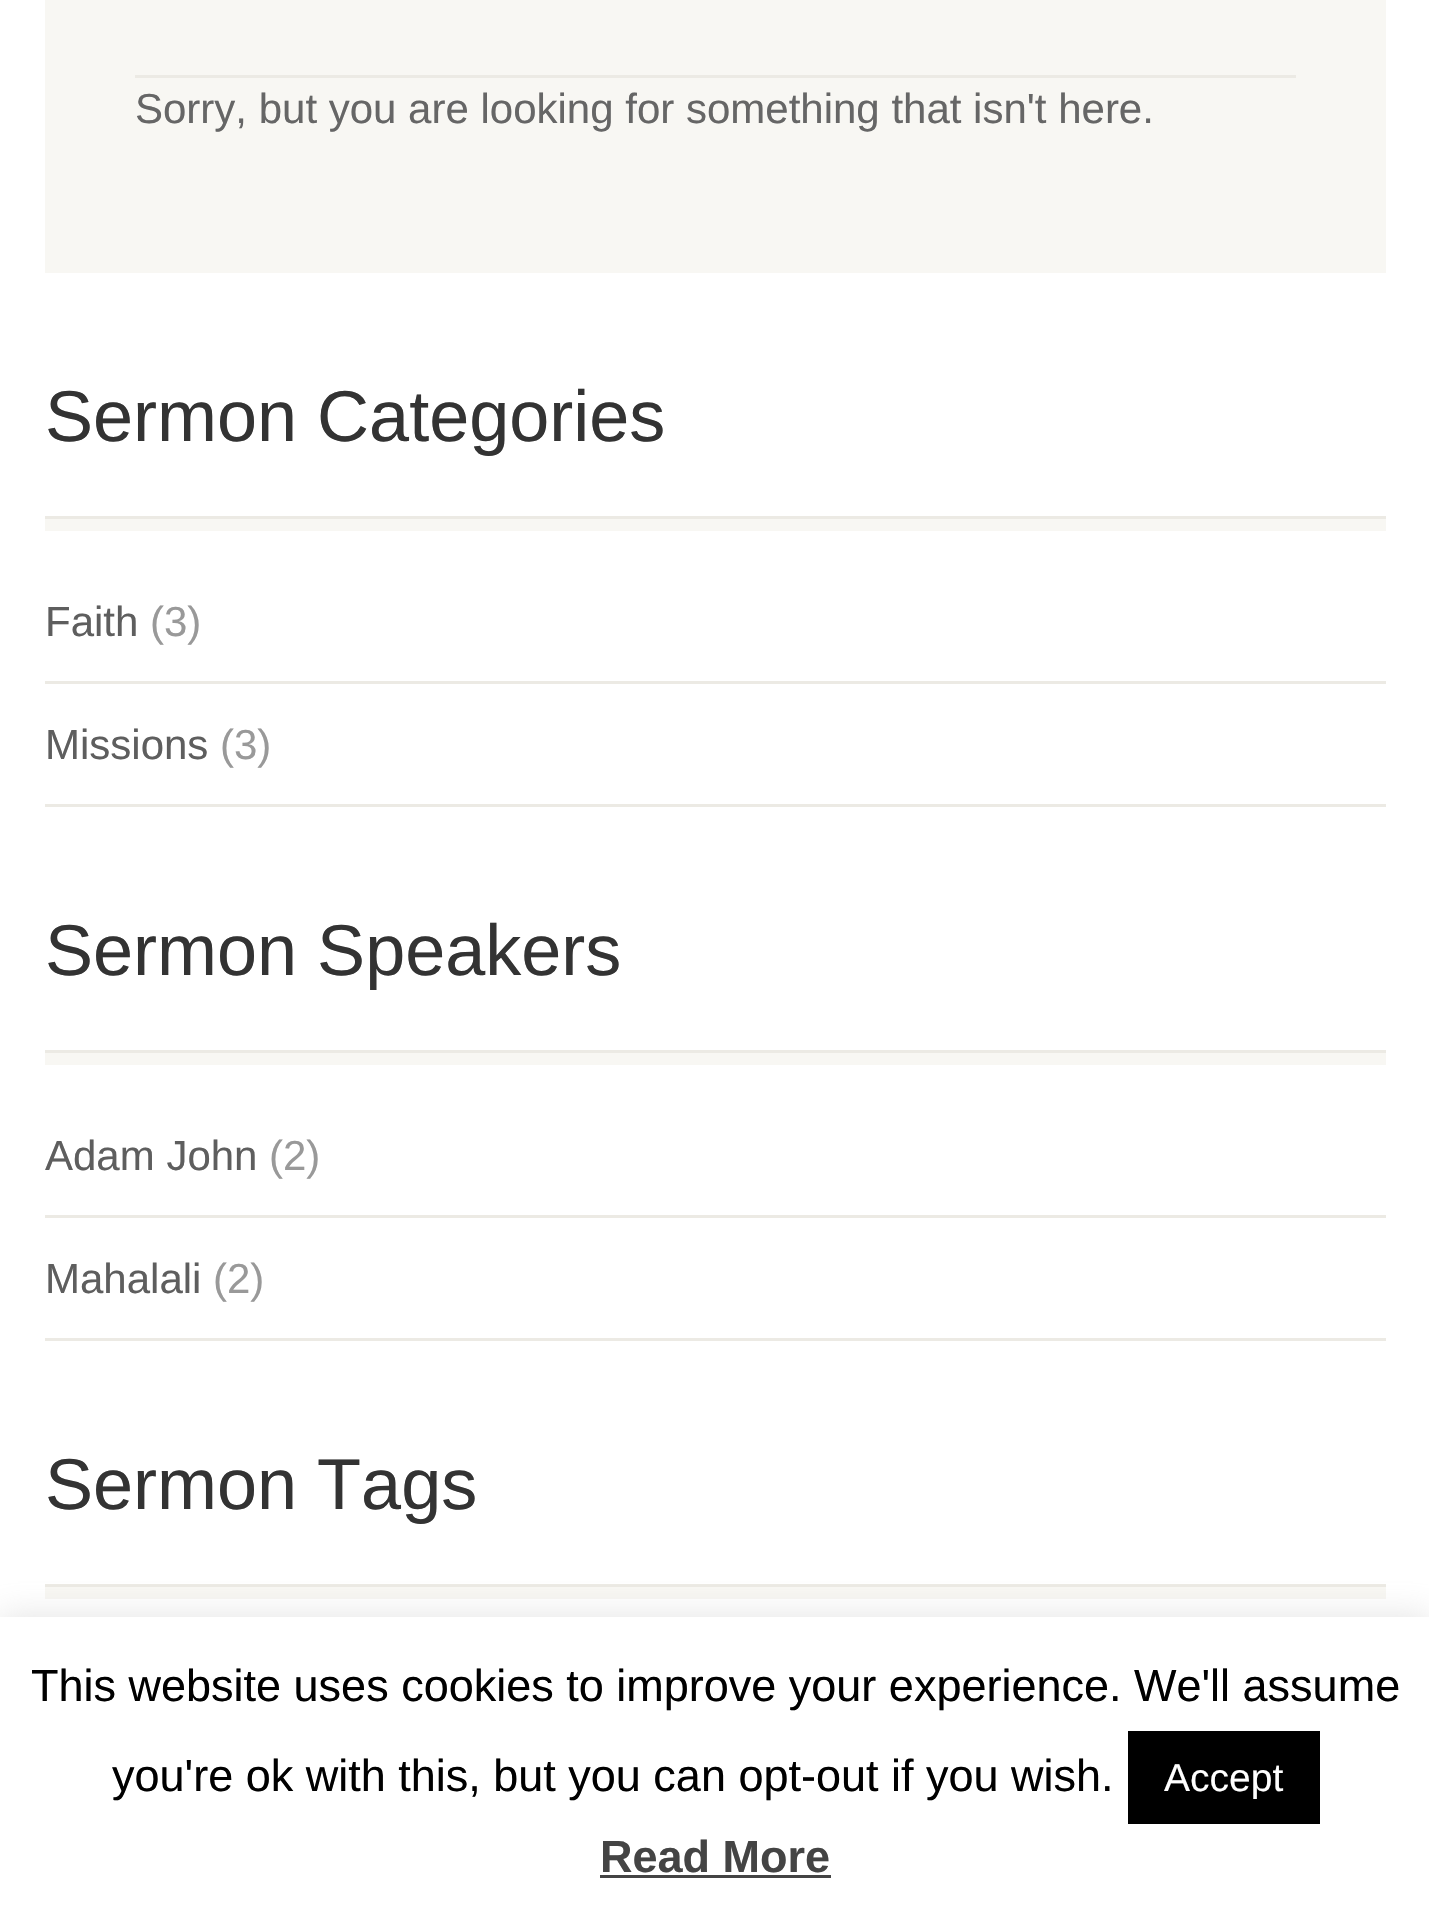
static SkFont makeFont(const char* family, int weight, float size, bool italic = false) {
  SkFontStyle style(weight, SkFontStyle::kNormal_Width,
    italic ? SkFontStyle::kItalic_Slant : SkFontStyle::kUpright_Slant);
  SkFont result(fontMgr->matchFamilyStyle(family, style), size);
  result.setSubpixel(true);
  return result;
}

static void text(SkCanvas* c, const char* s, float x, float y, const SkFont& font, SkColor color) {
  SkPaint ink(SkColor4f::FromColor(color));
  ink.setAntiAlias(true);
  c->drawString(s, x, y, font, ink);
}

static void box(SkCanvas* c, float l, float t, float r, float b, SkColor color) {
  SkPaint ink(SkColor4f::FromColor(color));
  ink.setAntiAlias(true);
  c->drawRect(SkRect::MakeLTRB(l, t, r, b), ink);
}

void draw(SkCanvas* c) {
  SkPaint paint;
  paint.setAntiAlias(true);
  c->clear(0xffffffff);
  box(c, 45, 0, 1386, 273, 0xfff8f7f3);
  box(c, 135, 75, 1296, 78, 0xffeceae4);
  SkFont face1 = makeFont("Liberation Sans", 400, 42);
  text(c, "Sorry, but you are looking for something that isn't here.", 135, 123, face1, 0xff666666);
  box(c, 45, 519, 1386, 531, 0xfff8f7f3);
  box(c, 45, 516, 1386, 519, 0xffeceae4);
  SkFont face2 = makeFont("Liberation Sans", 400, 72);
  text(c, "Sermon Categories", 45, 441, face2, 0xff333333);
  box(c, 45, 681, 1386, 684, 0xffeceae4);
  text(c, "Faith", 45, 636, face1, 0xff5e5e5e);
  text(c, "(3)", 150, 636, face1, 0xff999999);
  box(c, 45, 804, 1386, 807, 0xffeceae4);
  text(c, "Missions", 45, 759, face1, 0xff5e5e5e);
  text(c, "(3)", 220, 759, face1, 0xff999999);
  box(c, 45, 1053, 1386, 1065, 0xfff8f7f3);
  box(c, 45, 1050, 1386, 1053, 0xffeceae4);
  text(c, "Sermon Speakers", 45, 975, face2, 0xff333333);
  box(c, 45, 1215, 1386, 1218, 0xffeceae4);
  text(c, "Adam John", 45, 1170, face1, 0xff5e5e5e);
  text(c, "(2)", 269, 1170, face1, 0xff999999);
  box(c, 45, 1338, 1386, 1341, 0xffeceae4);
  text(c, "Mahalali", 45, 1293, face1, 0xff5e5e5e);
  text(c, "(2)", 213, 1293, face1, 0xff999999);
  box(c, 45, 1587, 1386, 1599, 0xfff8f7f3);
  box(c, 45, 1584, 1386, 1587, 0xffeceae4);
  text(c, "Sermon Tags", 45, 1509, face2, 0xff333333);
  paint.setColor(0x4dacabab);
  paint.setMaskFilter(SkMaskFilter::MakeBlur(kNormal_SkBlurStyle, 15));
  c->drawRect(SkRect::MakeLTRB(0, 1614, 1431, 1920), paint);
  paint.setMaskFilter(nullptr);
  box(c, 0, 1617, 1429, 1921, 0xffffffff);
  SkFont face3 = makeFont("Liberation Sans", 400, 45);
  text(c, "This website uses cookies to improve your experience. We'll assume", 31, 1701, face3, 0xff000000);
  text(c, "you're ok with this, but you can opt-out if you wish.", 112, 1791, face3, 0xff000000);
  box(c, 1128, 1731, 1320, 1824, 0xff000000);
  SkFont face4 = makeFont("Liberation Sans", 400, 39);
  text(c, "Accept", 1164, 1791, face4, 0xffffffff);
  SkFont face5 = makeFont("Liberation Sans", 700, 45);
  text(c, "Read More", 600, 1872, face5, 0xff444444);
  box(c, 600, 1875, 831, 1878, 0xff444444);
}
